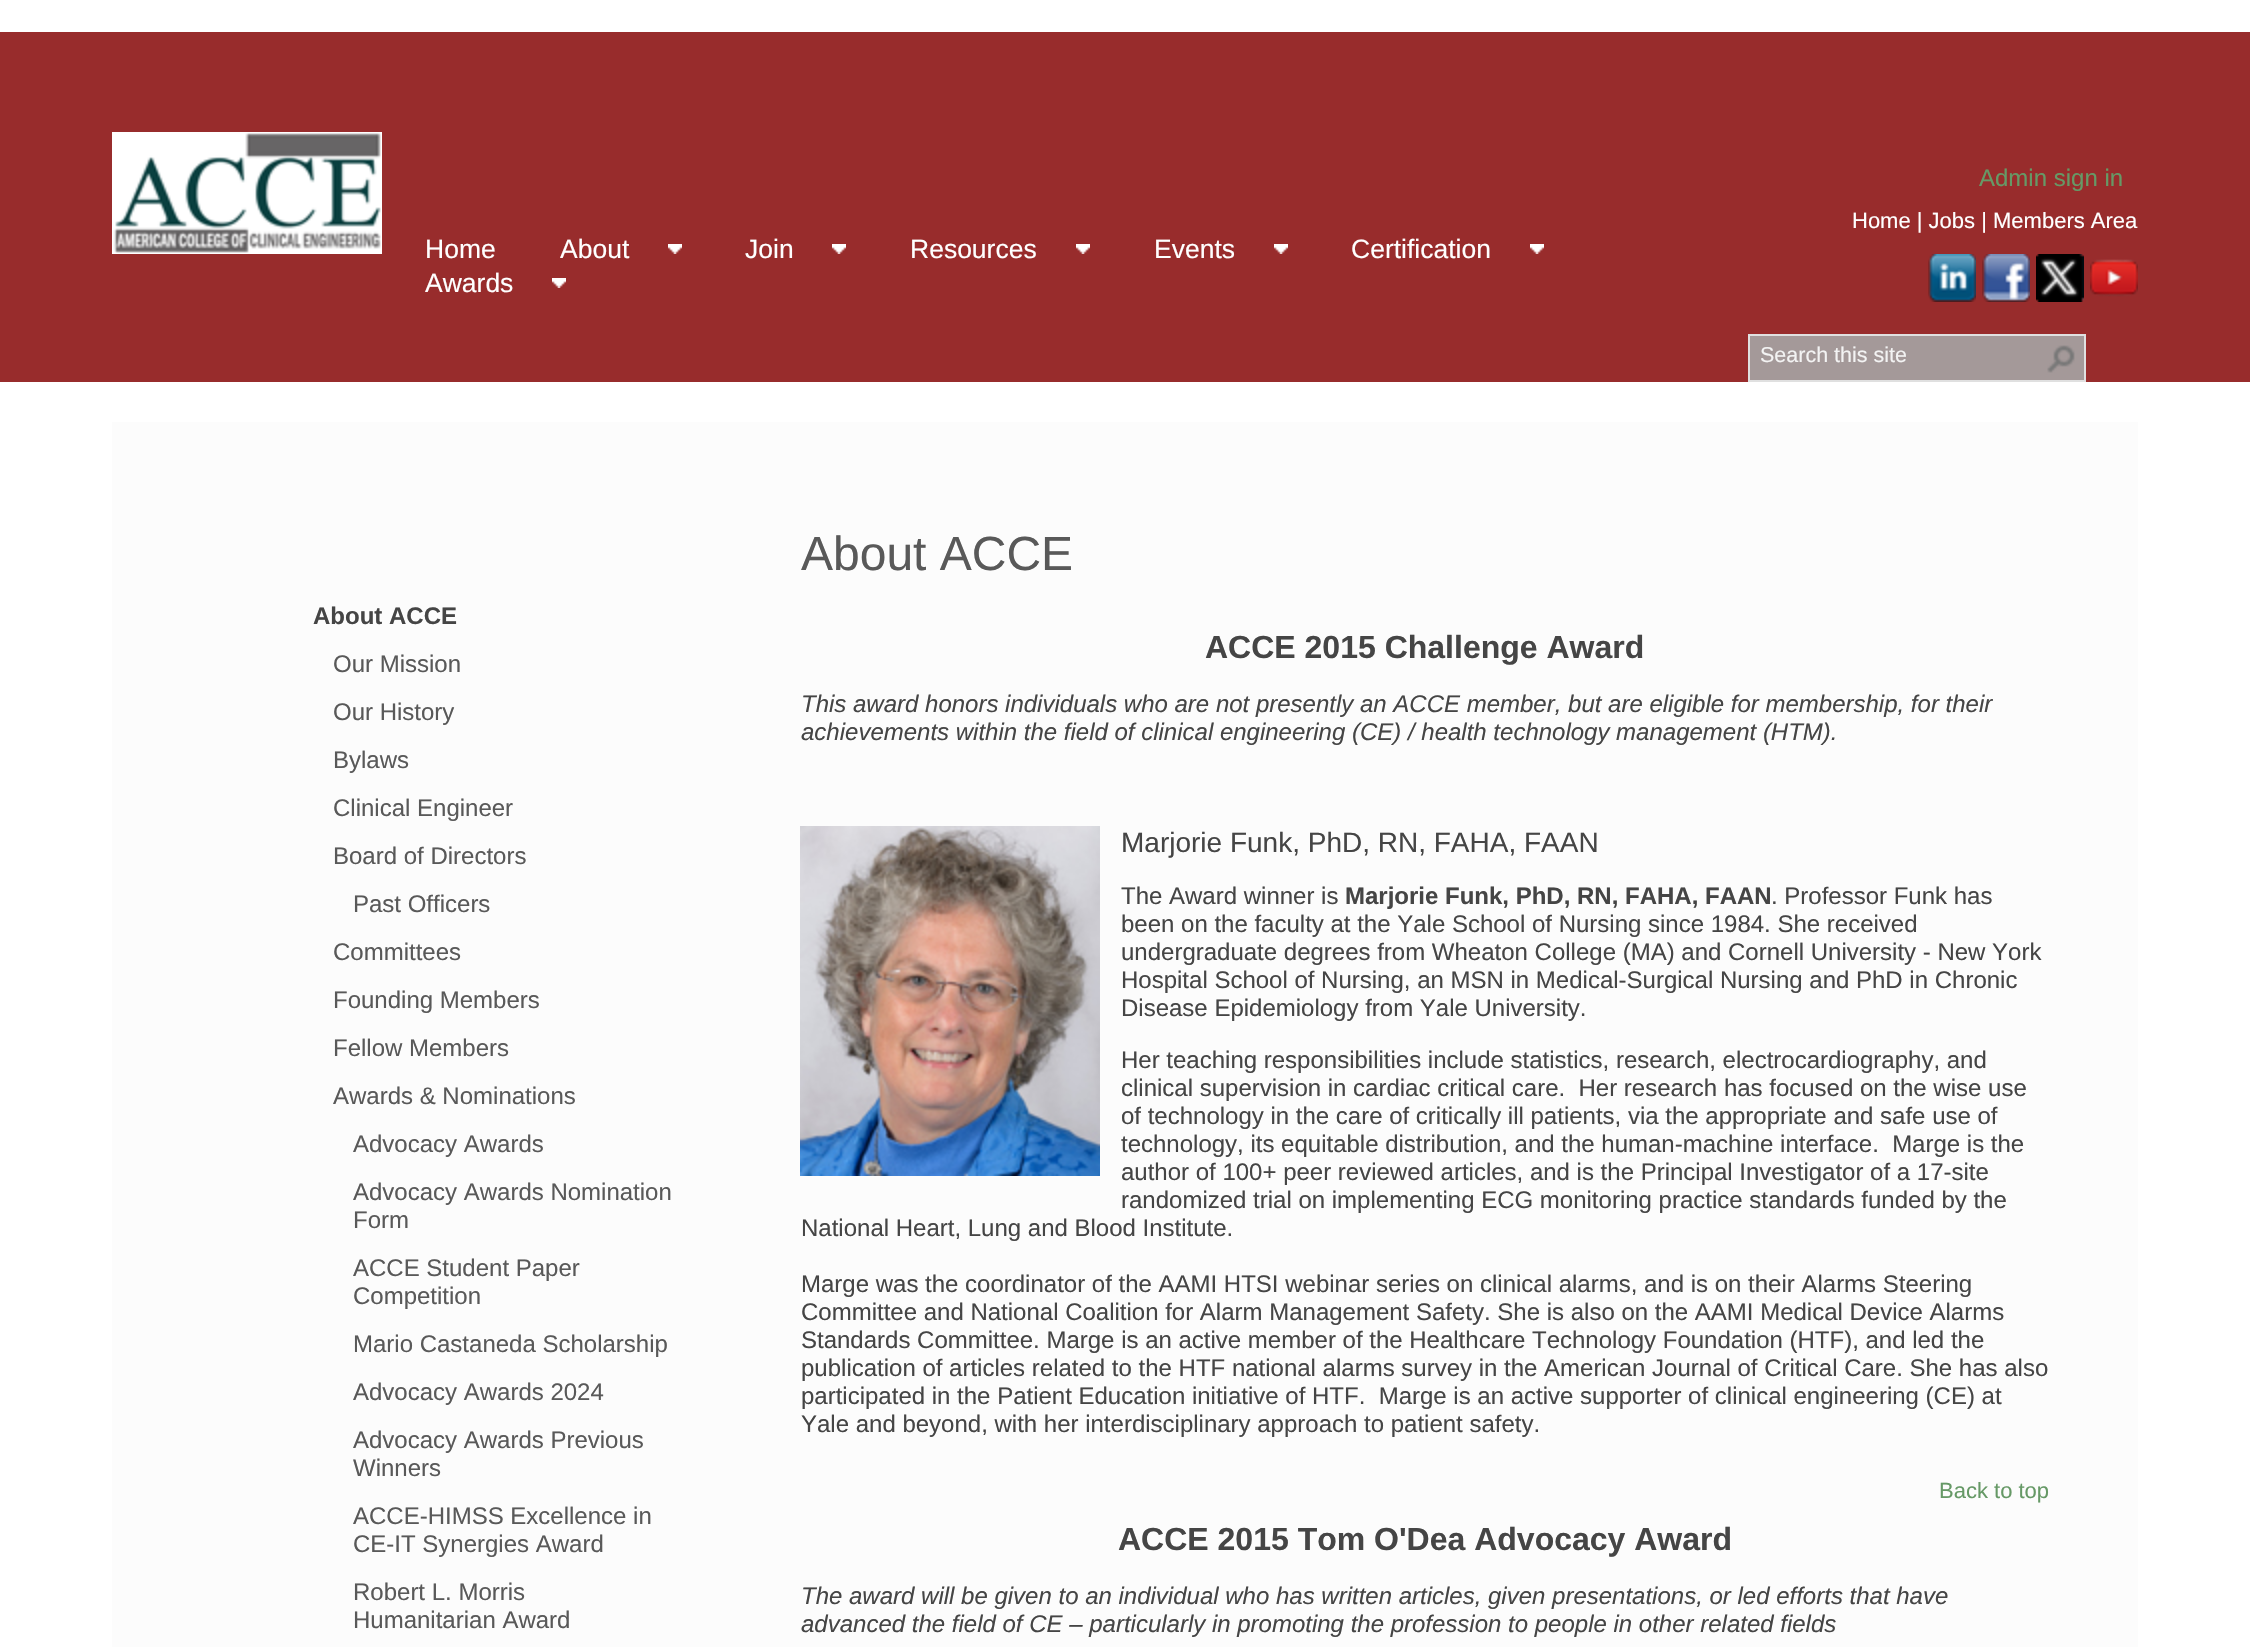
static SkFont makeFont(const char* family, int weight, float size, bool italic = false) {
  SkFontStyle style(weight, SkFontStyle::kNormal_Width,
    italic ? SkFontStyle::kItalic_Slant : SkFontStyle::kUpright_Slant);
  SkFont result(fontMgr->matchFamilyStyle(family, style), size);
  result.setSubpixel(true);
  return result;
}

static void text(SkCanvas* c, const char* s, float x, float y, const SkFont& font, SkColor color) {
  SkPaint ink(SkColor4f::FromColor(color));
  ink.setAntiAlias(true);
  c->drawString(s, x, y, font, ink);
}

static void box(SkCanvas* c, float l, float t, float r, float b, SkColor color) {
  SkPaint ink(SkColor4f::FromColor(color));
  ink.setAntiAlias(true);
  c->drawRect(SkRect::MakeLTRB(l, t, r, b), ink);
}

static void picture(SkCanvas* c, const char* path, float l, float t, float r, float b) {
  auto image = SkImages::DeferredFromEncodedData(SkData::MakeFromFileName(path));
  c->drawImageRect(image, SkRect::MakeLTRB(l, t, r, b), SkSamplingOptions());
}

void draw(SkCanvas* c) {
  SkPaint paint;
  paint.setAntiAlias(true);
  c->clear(0xffffffff);
  box(c, 0, 32, 2250, 382, 0xff982c2c);
  picture(c, "img_01.png", 112, 132, 382, 254);
  SkFont face1 = makeFont("Liberation Sans", 400, 26.5f);
  text(c, "Home", 425, 258, face1, 0xffffffff);
  text(c, "About", 560, 258, face1, 0xffffffff);
  picture(c, "img_02.png", 668, 244, 682, 254);
  text(c, "Join", 745, 258, face1, 0xffffffff);
  picture(c, "img_02.png", 832, 244, 846, 254);
  text(c, "Resources", 910, 258, face1, 0xffffffff);
  picture(c, "img_02.png", 1076, 244, 1090, 254);
  text(c, "Events", 1154, 258, face1, 0xffffffff);
  picture(c, "img_02.png", 1274, 244, 1288, 254);
  text(c, "Certification", 1351, 258, face1, 0xffffffff);
  picture(c, "img_02.png", 1530, 244, 1544, 254);
  text(c, "Awards", 425, 292, face1, 0xffffffff);
  picture(c, "img_02.png", 552, 278, 566, 288);
  SkFont face2 = makeFont("Liberation Sans", 400, 24);
  text(c, "Admin sign in", 1979, 186, face2, 0xff669966);
  SkFont face3 = makeFont("Liberation Sans", 400, 22);
  text(c, "Home | Jobs | Members Area", 1852, 228, face3, 0xffffffff);
  picture(c, "img_03.png", 1928, 254, 1976, 302);
  picture(c, "img_04.png", 1982, 254, 2030, 302);
  picture(c, "img_05.png", 2036, 254, 2084, 302);
  picture(c, "img_06.png", 2090, 259, 2138, 297);
  paint.setColor(0xffa49999);
  c->drawRect(SkRect::MakeLTRB(1749, 335, 2085, 381), paint);
  paint.setStyle(SkPaint::kStroke_Style);
  paint.setStrokeWidth(2);
  paint.setColor(0xffe0e0e0);
  c->drawRect(SkRect::MakeLTRB(1749, 335, 2085, 381), paint);
  SkFont face4 = makeFont("Liberation Sans", 400, 21.5f);
  text(c, "Search this site", 1760, 362, face4, 0xfff3f3f3);
  picture(c, "img_07.png", 2047, 345, 2075, 373);
  box(c, 112, 422, 2138, 1647, 0xfffcfcfc);
  SkFont face5 = makeFont("Liberation Sans", 700, 24);
  text(c, "About ACCE", 313, 624, face5, 0xff454545);
  text(c, "Our Mission", 333, 672, face2, 0xff595959);
  text(c, "Our History", 333, 720, face2, 0xff595959);
  text(c, "Bylaws", 333, 768, face2, 0xff595959);
  text(c, "Clinical Engineer", 333, 816, face2, 0xff595959);
  text(c, "Board of Directors", 333, 864, face2, 0xff595959);
  text(c, "Past Officers", 353, 912, face2, 0xff595959);
  text(c, "Committees", 333, 960, face2, 0xff595959);
  text(c, "Founding Members", 333, 1008, face2, 0xff595959);
  text(c, "Fellow Members", 333, 1056, face2, 0xff595959);
  text(c, "Awards & Nominations", 333, 1104, face2, 0xff595959);
  text(c, "Advocacy Awards", 353, 1152, face2, 0xff595959);
  text(c, "Advocacy Awards Nomination", 353, 1200, face2, 0xff595959);
  text(c, "Form", 353, 1228, face2, 0xff595959);
  text(c, "ACCE Student Paper", 353, 1276, face2, 0xff595959);
  text(c, "Competition", 353, 1304, face2, 0xff595959);
  text(c, "Mario Castaneda Scholarship", 353, 1352, face2, 0xff595959);
  text(c, "Advocacy Awards 2024", 353, 1400, face2, 0xff595959);
  text(c, "Advocacy Awards Previous", 353, 1448, face2, 0xff595959);
  text(c, "Winners", 353, 1476, face2, 0xff595959);
  text(c, "ACCE-HIMSS Excellence in", 353, 1524, face2, 0xff595959);
  text(c, "CE-IT Synergies Award", 353, 1552, face2, 0xff595959);
  text(c, "Robert L. Morris", 353, 1600, face2, 0xff595959);
  text(c, "Humanitarian Award", 353, 1628, face2, 0xff595959);
  SkFont face6 = makeFont("Liberation Sans", 400, 48);
  text(c, "About ACCE", 801, 570, face6, 0xff595959);
  SkFont face7 = makeFont("Liberation Sans", 700, 32);
  text(c, "ACCE 2015 Challenge Award", 1205, 658, face7, 0xff454545);
  SkFont face8 = makeFont("Liberation Sans", 400, 24, true);
  text(c, "This award honors individuals who are not presently an ACCE member, but are eligible for membership, for their", 801, 712, face8, 0xff454545);
  text(c, "achievements within the field of clinical engineering (CE) / health technology management (HTM).", 801, 740, face8, 0xff454545);
  picture(c, "img_08.png", 800, 826, 1100, 1176);
  SkFont face9 = makeFont("Liberation Sans", 400, 28);
  text(c, "Marjorie Funk, PhD, RN, FAHA, FAAN", 1121, 852, face9, 0xff454545);
  text(c, "The Award winner is", 1121, 904, face2, 0xff454545);
  text(c, "Marjorie Funk, PhD, RN, FAHA, FAAN", 1345, 904, face5, 0xff454545);
  text(c, ". Professor Funk has", 1771, 904, face2, 0xff454545);
  text(c, "been on the faculty at the Yale School of Nursing since 1984. She received", 1121, 932, face2, 0xff454545);
  text(c, "undergraduate degrees from Wheaton College (MA) and Cornell University - New York", 1121, 960, face2, 0xff454545);
  text(c, "Hospital School of Nursing, an MSN in Medical-Surgical Nursing and PhD in Chronic", 1121, 988, face2, 0xff454545);
  text(c, "Disease Epidemiology from Yale University.", 1121, 1016, face2, 0xff454545);
  text(c, "Her teaching responsibilities include statistics, research, electrocardiography, and", 1121, 1068, face2, 0xff454545);
  text(c, "clinical supervision in cardiac critical care.  Her research has focused on the wise use", 1121, 1096, face2, 0xff454545);
  text(c, "of technology in the care of critically ill patients, via the appropriate and safe use of", 1121, 1124, face2, 0xff454545);
  text(c, "technology, its equitable distribution, and the human-machine interface.  Marge is the", 1121, 1152, face2, 0xff454545);
  text(c, "author of 100+ peer reviewed articles, and is the Principal Investigator of a 17-site", 1121, 1180, face2, 0xff454545);
  text(c, "randomized trial on implementing ECG monitoring practice standards funded by the", 1121, 1208, face2, 0xff454545);
  text(c, "National Heart, Lung and Blood Institute.", 801, 1236, face2, 0xff454545);
  text(c, "Marge was the coordinator of the AAMI HTSI webinar series on clinical alarms, and is on their Alarms Steering", 801, 1292, face2, 0xff454545);
  text(c, "Committee and National Coalition for Alarm Management Safety. She is also on the AAMI Medical Device Alarms", 801, 1320, face2, 0xff454545);
  text(c, "Standards Committee. Marge is an active member of the Healthcare Technology Foundation (HTF), and led the", 801, 1348, face2, 0xff454545);
  text(c, "publication of articles related to the HTF national alarms survey in the American Journal of Critical Care. She has also", 801, 1376, face2, 0xff454545);
  text(c, "participated in the Patient Education initiative of HTF.  Marge is an active supporter of clinical engineering (CE) at", 801, 1404, face2, 0xff454545);
  text(c, "Yale and beyond, with her interdisciplinary approach to patient safety.", 801, 1432, face2, 0xff454545);
  text(c, "Back to top", 1939, 1498, face3, 0xff669966);
  text(c, "ACCE 2015 Tom O'Dea Advocacy Award", 1118, 1550, face7, 0xff454545);
  text(c, "The award will be given to an individual who has written articles, given presentations, or led efforts that have", 801, 1604, face8, 0xff454545);
  text(c, "advanced the field of CE – particularly in promoting the profession to people in other related fields", 801, 1632, face8, 0xff454545);
}
